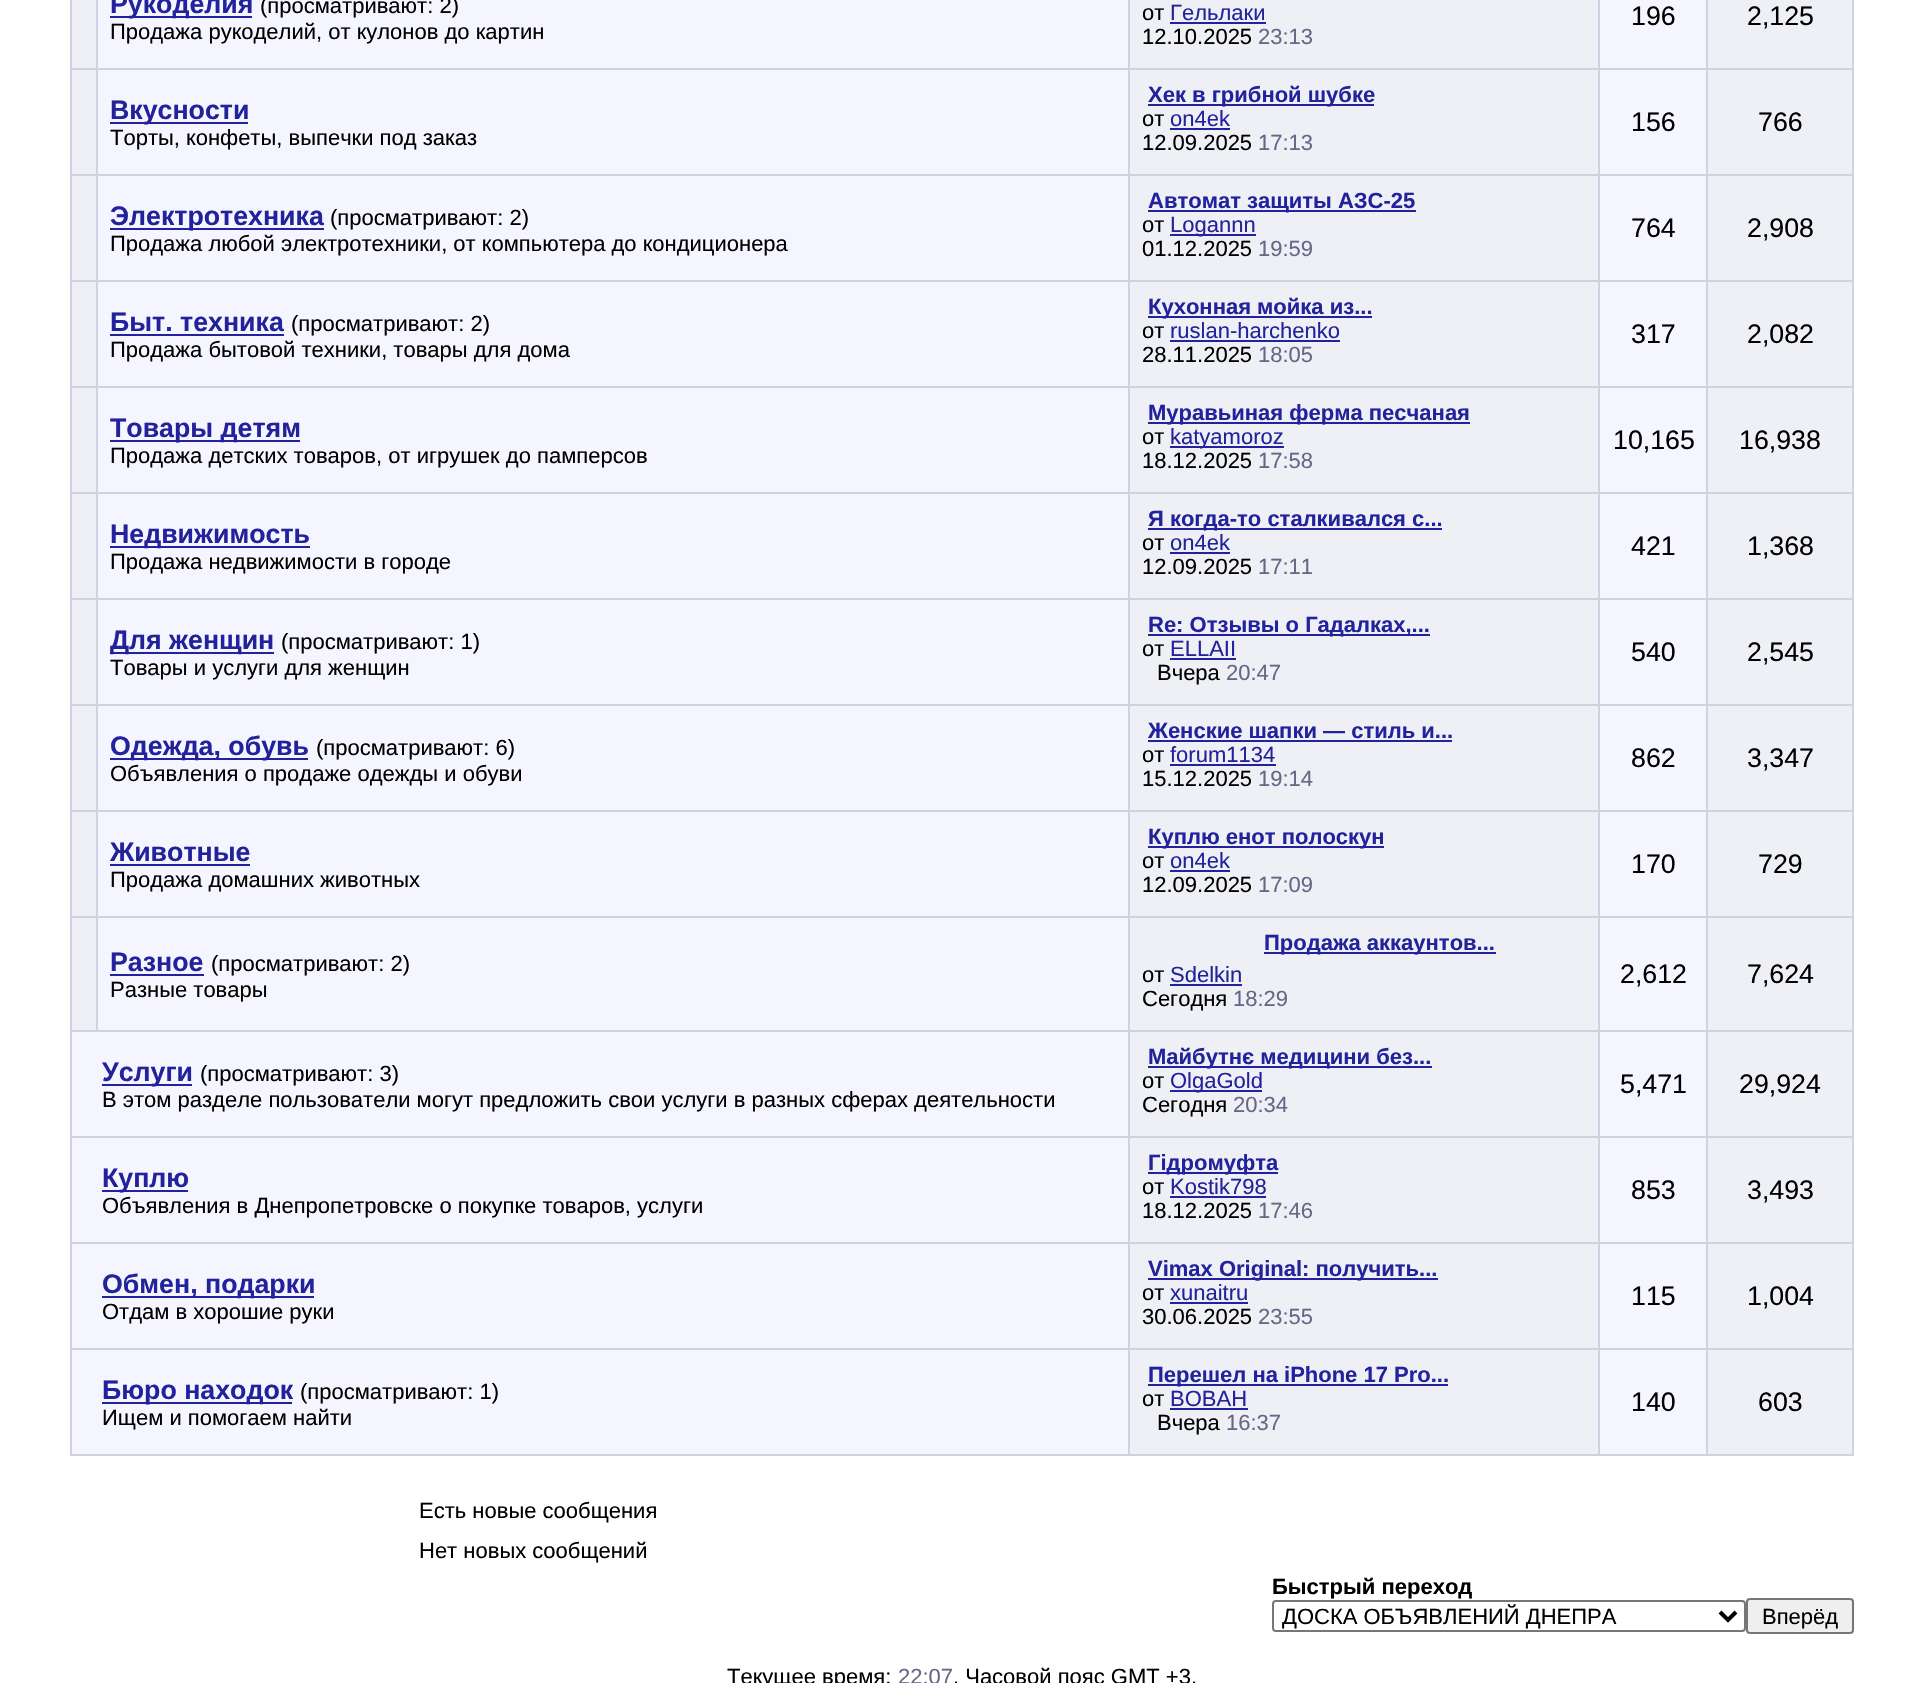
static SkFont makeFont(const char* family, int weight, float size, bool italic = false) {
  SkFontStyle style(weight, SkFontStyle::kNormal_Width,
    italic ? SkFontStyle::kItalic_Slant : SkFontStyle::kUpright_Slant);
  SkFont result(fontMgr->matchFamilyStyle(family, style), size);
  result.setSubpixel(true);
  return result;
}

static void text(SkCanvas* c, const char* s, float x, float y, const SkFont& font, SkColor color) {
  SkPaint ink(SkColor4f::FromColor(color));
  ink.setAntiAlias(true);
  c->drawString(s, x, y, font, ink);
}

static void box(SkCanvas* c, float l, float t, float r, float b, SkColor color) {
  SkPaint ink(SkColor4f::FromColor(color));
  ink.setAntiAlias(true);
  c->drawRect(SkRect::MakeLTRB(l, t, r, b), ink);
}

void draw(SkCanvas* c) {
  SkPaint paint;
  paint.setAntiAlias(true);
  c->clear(0xffffffff);
  box(c, 70, 0, 1854, 1456, 0xffd1d1e1);
  box(c, 72, 0, 96, 68, 0xffeef0f6);
  box(c, 98, 0, 1128, 68, 0xfff5f5ff);
  box(c, 110, 16, 252, 18, 0xff22229c);
  SkFont face1 = makeFont("Liberation Sans", 700, 26.75f);
  text(c, "Рукоделия", 110, 13, face1, 0xff22229c);
  SkFont face2 = makeFont("Liberation Sans", 400, 22);
  text(c, "(просматривают: 2)", 260, 13, face2, 0xff000000);
  text(c, "Продажа рукоделий, от кулонов до картин", 110, 39, face2, 0xff000000);
  box(c, 1130, 0, 1598, 68, 0xffeef0f6);
  text(c, "от", 1142, 20, face2, 0xff000000);
  text(c, "Гельлаки", 1170, 20, face2, 0xff22229c);
  box(c, 1170, 22, 1266, 24, 0xff22229c);
  text(c, "12.10.2025", 1142, 44, face2, 0xff000000);
  text(c, "23:13", 1258, 44, face2, 0xff666686);
  box(c, 1600, 0, 1706, 68, 0xfff5f5ff);
  SkFont face3 = makeFont("Liberation Sans", 400, 26.75f);
  text(c, "196", 1631, 25, face3, 0xff000000);
  box(c, 1708, 0, 1852, 68, 0xffeef0f6);
  text(c, "2,125", 1747, 25, face3, 0xff000000);
  box(c, 72, 70, 96, 174, 0xffeef0f6);
  box(c, 98, 70, 1128, 174, 0xfff5f5ff);
  box(c, 110, 122, 248, 124, 0xff22229c);
  text(c, "Вкусности", 110, 119, face1, 0xff22229c);
  text(c, "Торты, конфеты, выпечки под заказ", 110, 145, face2, 0xff000000);
  box(c, 1130, 70, 1598, 174, 0xffeef0f6);
  box(c, 1148, 104, 1374, 106, 0xff22229c);
  SkFont face4 = makeFont("Liberation Sans", 700, 22);
  text(c, "Хек в грибной шубке", 1148, 102, face4, 0xff22229c);
  text(c, "от", 1142, 126, face2, 0xff000000);
  text(c, "on4ek", 1170, 126, face2, 0xff22229c);
  box(c, 1170, 128, 1230, 130, 0xff22229c);
  text(c, "12.09.2025", 1142, 150, face2, 0xff000000);
  text(c, "17:13", 1258, 150, face2, 0xff666686);
  box(c, 1600, 70, 1706, 174, 0xfff5f5ff);
  text(c, "156", 1631, 131, face3, 0xff000000);
  box(c, 1708, 70, 1852, 174, 0xffeef0f6);
  text(c, "766", 1758, 131, face3, 0xff000000);
  box(c, 72, 176, 96, 280, 0xffeef0f6);
  box(c, 98, 176, 1128, 280, 0xfff5f5ff);
  box(c, 110, 228, 324, 230, 0xff22229c);
  text(c, "Электротехника", 110, 225, face1, 0xff22229c);
  text(c, "(просматривают: 2)", 330, 225, face2, 0xff000000);
  text(c, "Продажа любой электротехники, от компьютера до кондиционера", 110, 251, face2, 0xff000000);
  box(c, 1130, 176, 1598, 280, 0xffeef0f6);
  box(c, 1148, 210, 1416, 212, 0xff22229c);
  text(c, "Автомат защиты АЗС-25", 1148, 208, face4, 0xff22229c);
  text(c, "от", 1142, 232, face2, 0xff000000);
  box(c, 1170, 234, 1256, 236, 0xff22229c);
  text(c, "Logannn", 1170, 232, face2, 0xff22229c);
  text(c, "01.12.2025", 1142, 256, face2, 0xff000000);
  text(c, "19:59", 1258, 256, face2, 0xff666686);
  box(c, 1600, 176, 1706, 280, 0xfff5f5ff);
  text(c, "764", 1631, 237, face3, 0xff000000);
  box(c, 1708, 176, 1852, 280, 0xffeef0f6);
  text(c, "2,908", 1747, 237, face3, 0xff000000);
  box(c, 72, 282, 96, 386, 0xffeef0f6);
  box(c, 98, 282, 1128, 386, 0xfff5f5ff);
  text(c, "Быт. техника", 110, 331, face1, 0xff22229c);
  box(c, 110, 334, 284, 336, 0xff22229c);
  text(c, "(просматривают: 2)", 291, 331, face2, 0xff000000);
  text(c, "Продажа бытовой техники, товары для дома", 110, 357, face2, 0xff000000);
  box(c, 1130, 282, 1598, 386, 0xffeef0f6);
  box(c, 1148, 316, 1372, 318, 0xff22229c);
  text(c, "Кухонная мойка из...", 1148, 314, face4, 0xff22229c);
  text(c, "от", 1142, 338, face2, 0xff000000);
  text(c, "ruslan-harchenko", 1170, 338, face2, 0xff22229c);
  box(c, 1170, 340, 1340, 342, 0xff22229c);
  text(c, "28.11.2025", 1142, 362, face2, 0xff000000);
  text(c, "18:05", 1258, 362, face2, 0xff666686);
  box(c, 1600, 282, 1706, 386, 0xfff5f5ff);
  text(c, "317", 1631, 343, face3, 0xff000000);
  box(c, 1708, 282, 1852, 386, 0xffeef0f6);
  text(c, "2,082", 1747, 343, face3, 0xff000000);
  box(c, 72, 388, 96, 492, 0xffeef0f6);
  box(c, 98, 388, 1128, 492, 0xfff5f5ff);
  box(c, 110, 440, 300, 442, 0xff22229c);
  text(c, "Товары детям", 110, 437, face1, 0xff22229c);
  text(c, "Продажа детских товаров, от игрушек до памперсов", 110, 463, face2, 0xff000000);
  box(c, 1130, 388, 1598, 492, 0xffeef0f6);
  box(c, 1148, 422, 1470, 424, 0xff22229c);
  text(c, "Муравьиная ферма песчаная", 1148, 420, face4, 0xff22229c);
  text(c, "от", 1142, 444, face2, 0xff000000);
  box(c, 1170, 446, 1284, 448, 0xff22229c);
  text(c, "katyamoroz", 1170, 444, face2, 0xff22229c);
  text(c, "18.12.2025", 1142, 468, face2, 0xff000000);
  text(c, "17:58", 1258, 468, face2, 0xff666686);
  box(c, 1600, 388, 1706, 492, 0xfff5f5ff);
  text(c, "10,165", 1613, 449, face3, 0xff000000);
  box(c, 1708, 388, 1852, 492, 0xffeef0f6);
  text(c, "16,938", 1739, 449, face3, 0xff000000);
  box(c, 72, 494, 96, 598, 0xffeef0f6);
  box(c, 98, 494, 1128, 598, 0xfff5f5ff);
  box(c, 110, 546, 310, 548, 0xff22229c);
  text(c, "Недвижимость", 110, 543, face1, 0xff22229c);
  text(c, "Продажа недвижимости в городе", 110, 569, face2, 0xff000000);
  box(c, 1130, 494, 1598, 598, 0xffeef0f6);
  box(c, 1148, 528, 1442, 530, 0xff22229c);
  text(c, "Я когда-то сталкивался с...", 1148, 526, face4, 0xff22229c);
  text(c, "от", 1142, 550, face2, 0xff000000);
  text(c, "on4ek", 1170, 550, face2, 0xff22229c);
  box(c, 1170, 552, 1230, 554, 0xff22229c);
  text(c, "12.09.2025", 1142, 574, face2, 0xff000000);
  text(c, "17:11", 1258, 574, face2, 0xff666686);
  box(c, 1600, 494, 1706, 598, 0xfff5f5ff);
  text(c, "421", 1631, 555, face3, 0xff000000);
  box(c, 1708, 494, 1852, 598, 0xffeef0f6);
  text(c, "1,368", 1747, 555, face3, 0xff000000);
  box(c, 72, 600, 96, 704, 0xffeef0f6);
  box(c, 98, 600, 1128, 704, 0xfff5f5ff);
  box(c, 110, 652, 274, 654, 0xff22229c);
  text(c, "Для женщин", 110, 649, face1, 0xff22229c);
  text(c, "(просматривают: 1)", 281, 649, face2, 0xff000000);
  text(c, "Товары и услуги для женщин", 110, 675, face2, 0xff000000);
  box(c, 1130, 600, 1598, 704, 0xffeef0f6);
  box(c, 1148, 634, 1430, 636, 0xff22229c);
  text(c, "Re: Отзывы о Гадалках,...", 1148, 632, face4, 0xff22229c);
  text(c, "от", 1142, 656, face2, 0xff000000);
  text(c, "ELLAII", 1170, 656, face2, 0xff22229c);
  box(c, 1170, 658, 1236, 660, 0xff22229c);
  text(c, "Вчера", 1157, 680, face2, 0xff000000);
  text(c, "20:47", 1226, 680, face2, 0xff666686);
  box(c, 1600, 600, 1706, 704, 0xfff5f5ff);
  text(c, "540", 1631, 661, face3, 0xff000000);
  box(c, 1708, 600, 1852, 704, 0xffeef0f6);
  text(c, "2,545", 1747, 661, face3, 0xff000000);
  box(c, 72, 706, 96, 810, 0xffeef0f6);
  box(c, 98, 706, 1128, 810, 0xfff5f5ff);
  box(c, 110, 758, 308, 760, 0xff22229c);
  text(c, "Одежда, обувь", 110, 755, face1, 0xff22229c);
  text(c, "(просматривают: 6)", 316, 755, face2, 0xff000000);
  text(c, "Объявления о продаже одежды и обуви", 110, 781, face2, 0xff000000);
  box(c, 1130, 706, 1598, 810, 0xffeef0f6);
  text(c, "Женские шапки — стиль и...", 1148, 738, face4, 0xff22229c);
  box(c, 1148, 740, 1452, 742, 0xff22229c);
  text(c, "от", 1142, 762, face2, 0xff000000);
  text(c, "forum1134", 1170, 762, face2, 0xff22229c);
  box(c, 1170, 764, 1276, 766, 0xff22229c);
  text(c, "15.12.2025", 1142, 786, face2, 0xff000000);
  text(c, "19:14", 1258, 786, face2, 0xff666686);
  box(c, 1600, 706, 1706, 810, 0xfff5f5ff);
  text(c, "862", 1631, 767, face3, 0xff000000);
  box(c, 1708, 706, 1852, 810, 0xffeef0f6);
  text(c, "3,347", 1747, 767, face3, 0xff000000);
  box(c, 72, 812, 96, 916, 0xffeef0f6);
  box(c, 98, 812, 1128, 916, 0xfff5f5ff);
  text(c, "Животные", 110, 861, face1, 0xff22229c);
  box(c, 110, 864, 250, 866, 0xff22229c);
  text(c, "Продажа домашних животных", 110, 887, face2, 0xff000000);
  box(c, 1130, 812, 1598, 916, 0xffeef0f6);
  box(c, 1148, 846, 1384, 848, 0xff22229c);
  text(c, "Куплю енот полоскун", 1148, 844, face4, 0xff22229c);
  text(c, "от", 1142, 868, face2, 0xff000000);
  text(c, "on4ek", 1170, 868, face2, 0xff22229c);
  box(c, 1170, 870, 1230, 872, 0xff22229c);
  text(c, "12.09.2025", 1142, 892, face2, 0xff000000);
  text(c, "17:09", 1258, 892, face2, 0xff666686);
  box(c, 1600, 812, 1706, 916, 0xfff5f5ff);
  text(c, "170", 1631, 873, face3, 0xff000000);
  box(c, 1708, 812, 1852, 916, 0xffeef0f6);
  text(c, "729", 1758, 873, face3, 0xff000000);
  box(c, 72, 918, 96, 1030, 0xffeef0f6);
  box(c, 98, 918, 1128, 1030, 0xfff5f5ff);
  text(c, "Разное", 110, 971, face1, 0xff22229c);
  box(c, 110, 974, 204, 976, 0xff22229c);
  text(c, "(просматривают: 2)", 211, 971, face2, 0xff000000);
  text(c, "Разные товары", 110, 997, face2, 0xff000000);
  box(c, 1130, 918, 1598, 1030, 0xffeef0f6);
  box(c, 1264, 952, 1496, 954, 0xff22229c);
  text(c, "Продажа аккаунтов...", 1264, 950, face4, 0xff22229c);
  text(c, "от", 1142, 982, face2, 0xff000000);
  text(c, "Sdelkin", 1170, 982, face2, 0xff22229c);
  box(c, 1170, 984, 1242, 986, 0xff22229c);
  text(c, "Сегодня", 1142, 1006, face2, 0xff000000);
  text(c, "18:29", 1233, 1006, face2, 0xff666686);
  box(c, 1600, 918, 1706, 1030, 0xfff5f5ff);
  text(c, "2,612", 1620, 983, face3, 0xff000000);
  box(c, 1708, 918, 1852, 1030, 0xffeef0f6);
  text(c, "7,624", 1747, 983, face3, 0xff000000);
  box(c, 72, 1032, 1128, 1136, 0xfff5f5ff);
  box(c, 102, 1084, 192, 1086, 0xff22229c);
  text(c, "Услуги", 102, 1081, face1, 0xff22229c);
  text(c, "(просматривают: 3)", 200, 1081, face2, 0xff000000);
  text(c, "В этом разделе пользователи могут предложить свои услуги в разных сферах деятельности", 102, 1107, face2, 0xff000000);
  box(c, 1130, 1032, 1598, 1136, 0xffeef0f6);
  box(c, 1148, 1066, 1432, 1068, 0xff22229c);
  text(c, "Майбутнє медицини без...", 1148, 1064, face4, 0xff22229c);
  text(c, "от", 1142, 1088, face2, 0xff000000);
  box(c, 1170, 1090, 1262, 1092, 0xff22229c);
  text(c, "OlgaGold", 1170, 1088, face2, 0xff22229c);
  text(c, "Сегодня", 1142, 1112, face2, 0xff000000);
  text(c, "20:34", 1233, 1112, face2, 0xff666686);
  box(c, 1600, 1032, 1706, 1136, 0xfff5f5ff);
  text(c, "5,471", 1620, 1093, face3, 0xff000000);
  box(c, 1708, 1032, 1852, 1136, 0xffeef0f6);
  text(c, "29,924", 1739, 1093, face3, 0xff000000);
  box(c, 72, 1138, 1128, 1242, 0xfff5f5ff);
  box(c, 102, 1190, 188, 1192, 0xff22229c);
  text(c, "Куплю", 102, 1187, face1, 0xff22229c);
  text(c, "Объявления в Днепропетровске о покупке товаров, услуги", 102, 1213, face2, 0xff000000);
  box(c, 1130, 1138, 1598, 1242, 0xffeef0f6);
  box(c, 1148, 1172, 1278, 1174, 0xff22229c);
  text(c, "Гідромуфта", 1148, 1170, face4, 0xff22229c);
  text(c, "от", 1142, 1194, face2, 0xff000000);
  text(c, "Kostik798", 1170, 1194, face2, 0xff22229c);
  box(c, 1170, 1196, 1266, 1198, 0xff22229c);
  text(c, "18.12.2025", 1142, 1218, face2, 0xff000000);
  text(c, "17:46", 1258, 1218, face2, 0xff666686);
  box(c, 1600, 1138, 1706, 1242, 0xfff5f5ff);
  text(c, "853", 1631, 1199, face3, 0xff000000);
  box(c, 1708, 1138, 1852, 1242, 0xffeef0f6);
  text(c, "3,493", 1747, 1199, face3, 0xff000000);
  box(c, 72, 1244, 1128, 1348, 0xfff5f5ff);
  box(c, 102, 1296, 314, 1298, 0xff22229c);
  text(c, "Обмен, подарки", 102, 1293, face1, 0xff22229c);
  text(c, "Отдам в хорошие руки", 102, 1319, face2, 0xff000000);
  box(c, 1130, 1244, 1598, 1348, 0xffeef0f6);
  box(c, 1148, 1278, 1438, 1280, 0xff22229c);
  text(c, "Vimax Original: получить...", 1148, 1276, face4, 0xff22229c);
  text(c, "от", 1142, 1300, face2, 0xff000000);
  text(c, "xunaitru", 1170, 1300, face2, 0xff22229c);
  box(c, 1170, 1302, 1248, 1304, 0xff22229c);
  text(c, "30.06.2025", 1142, 1324, face2, 0xff000000);
  text(c, "23:55", 1258, 1324, face2, 0xff666686);
  box(c, 1600, 1244, 1706, 1348, 0xfff5f5ff);
  text(c, "115", 1631, 1305, face3, 0xff000000);
  box(c, 1708, 1244, 1852, 1348, 0xffeef0f6);
  text(c, "1,004", 1747, 1305, face3, 0xff000000);
  box(c, 72, 1350, 1128, 1454, 0xfff5f5ff);
  box(c, 102, 1402, 292, 1404, 0xff22229c);
  text(c, "Бюро находок", 102, 1399, face1, 0xff22229c);
  text(c, "(просматривают: 1)", 300, 1399, face2, 0xff000000);
  text(c, "Ищем и помогаем найти", 102, 1425, face2, 0xff000000);
  box(c, 1130, 1350, 1598, 1454, 0xffeef0f6);
  box(c, 1148, 1384, 1448, 1386, 0xff22229c);
  text(c, "Перешел на iPhone 17 Pro...", 1148, 1382, face4, 0xff22229c);
  text(c, "от", 1142, 1406, face2, 0xff000000);
  text(c, "BOBAH", 1170, 1406, face2, 0xff22229c);
  box(c, 1170, 1408, 1248, 1410, 0xff22229c);
  text(c, "Вчера", 1157, 1430, face2, 0xff000000);
  text(c, "16:37", 1226, 1430, face2, 0xff666686);
  box(c, 1600, 1350, 1706, 1454, 0xfff5f5ff);
  text(c, "140", 1631, 1411, face3, 0xff000000);
  box(c, 1708, 1350, 1852, 1454, 0xffeef0f6);
  text(c, "603", 1758, 1411, face3, 0xff000000);
  text(c, "Есть новые сообщения", 419, 1518, face2, 0xff000000);
  text(c, "Нет новых сообщений", 419, 1558, face2, 0xff000000);
  text(c, "Быстрый переход", 1272, 1594, face4, 0xff000000);
  paint.setStyle(SkPaint::kStroke_Style);
  paint.setStrokeWidth(2);
  paint.setColor(0xff767676);
  c->drawRoundRect(SkRect::MakeLTRB(1273, 1601, 1745, 1631), 3, 3, paint);
  paint.setStrokeWidth(4);
  paint.setColor(0xff000000);
  c->drawPath(SkPathBuilder().moveTo(1720, 1612).lineTo(1728, 1620).lineTo(1736, 1612).detach(), paint);
  text(c, "ДОСКА ОБЪЯВЛЕНИЙ ДНЕПРА", 1282, 1624, face2, 0xff000000);
  paint.setStyle(SkPaint::kFill_Style);
  paint.setColor(0xffefefef);
  c->drawRoundRect(SkRect::MakeLTRB(1747, 1599, 1853, 1633), 3, 3, paint);
  paint.setStyle(SkPaint::kStroke_Style);
  paint.setStrokeWidth(2);
  paint.setColor(0xff767676);
  c->drawRoundRect(SkRect::MakeLTRB(1747, 1599, 1853, 1633), 3, 3, paint);
  text(c, "Вперёд", 1762, 1624, face2, 0xff000000);
  text(c, "Текущее время:", 727, 1684, face2, 0xff000000);
  text(c, "22:07", 898, 1684, face2, 0xff666686);
  text(c, ". Часовой пояс GMT +3.", 953, 1684, face2, 0xff000000);
}
